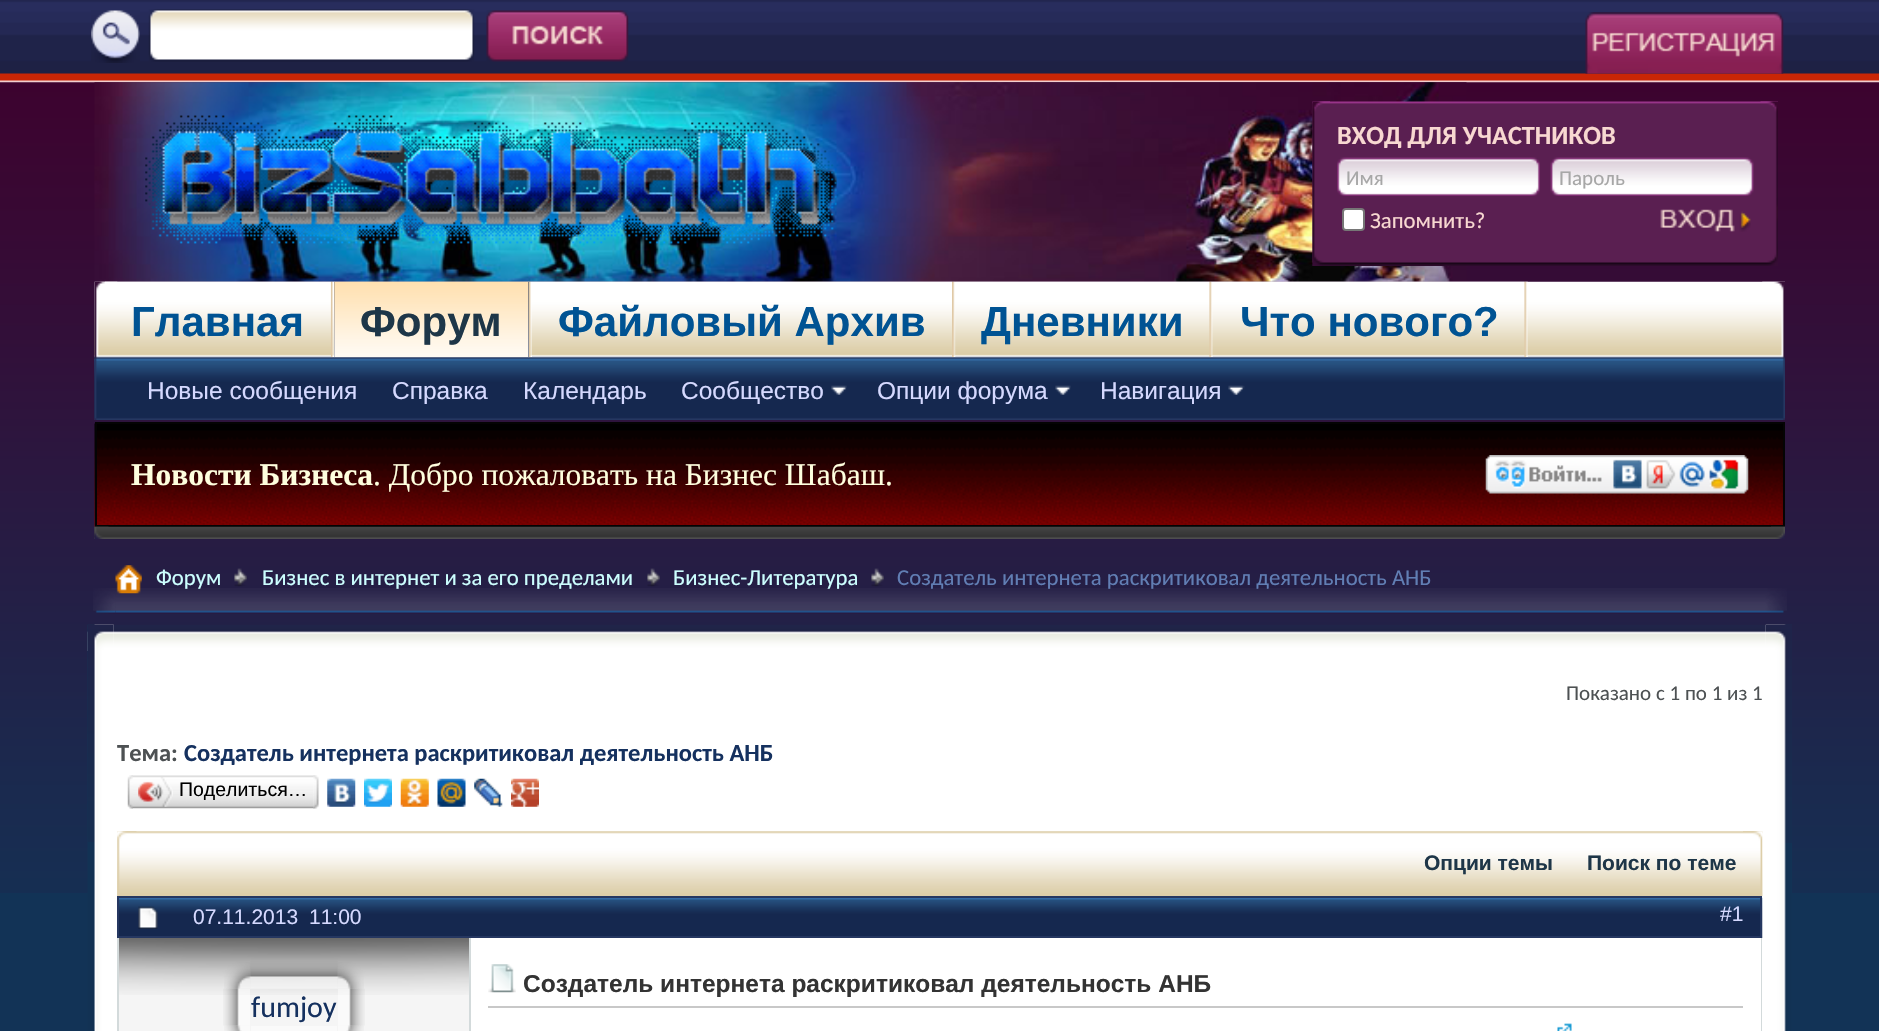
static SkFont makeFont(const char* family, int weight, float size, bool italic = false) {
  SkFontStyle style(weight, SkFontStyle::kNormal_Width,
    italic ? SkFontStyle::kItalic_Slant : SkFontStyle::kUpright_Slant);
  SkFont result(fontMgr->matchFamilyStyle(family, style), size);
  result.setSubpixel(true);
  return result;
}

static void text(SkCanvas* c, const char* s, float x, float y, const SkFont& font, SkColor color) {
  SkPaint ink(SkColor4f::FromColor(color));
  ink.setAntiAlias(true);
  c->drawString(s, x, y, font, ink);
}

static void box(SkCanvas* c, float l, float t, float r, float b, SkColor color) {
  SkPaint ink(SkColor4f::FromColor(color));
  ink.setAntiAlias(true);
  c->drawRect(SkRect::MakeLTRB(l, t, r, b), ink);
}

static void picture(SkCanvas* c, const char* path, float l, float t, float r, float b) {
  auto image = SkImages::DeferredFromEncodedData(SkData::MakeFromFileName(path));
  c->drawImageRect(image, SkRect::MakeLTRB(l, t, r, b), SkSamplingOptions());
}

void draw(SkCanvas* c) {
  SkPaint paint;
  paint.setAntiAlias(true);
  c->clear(0xff123356);
  picture(c, "img_01.png", 0, 82, 1879, 893);
  picture(c, "img_02.png", 0, 0, 1879, 83);
  picture(c, "img_03.png", 91, 10, 140, 63);
  picture(c, "img_04.png", 148, 9, 475, 62);
  picture(c, "img_05.png", 486, 10, 629, 62);
  picture(c, "img_06.png", 1585, 12, 1784, 74);
  picture(c, "img_07.png", 94, 82, 1467, 282);
  picture(c, "img_08.png", 145, 115, 837, 244);
  picture(c, "img_09.png", 1312, 101, 1778, 266);
  picture(c, "img_10.png", 1312, 101, 1330, 266);
  picture(c, "img_11.png", 1760, 101, 1778, 266);
  SkFont face1 = makeFont("Carlito", 700, 26.25f);
  text(c, "ВХОД ДЛЯ УЧАСТНИКОВ", 1337, 144, face1, 0xfff8d8d1);
  picture(c, "img_12.png", 1337, 157, 1540, 196);
  SkFont face2 = makeFont("Carlito", 400, 21);
  text(c, "Имя", 1346, 185, face2, 0xffa7a7a7);
  picture(c, "img_13.png", 1550, 157, 1754, 196);
  text(c, "Пароль", 1559, 185, face2, 0xffa7a7a7);
  paint.setColor(0xffffffff);
  c->drawRoundRect(SkRect::MakeLTRB(1343, 209, 1364, 230), 3, 3, paint);
  paint.setStyle(SkPaint::kStroke_Style);
  paint.setStrokeWidth(2);
  paint.setColor(0xff767676);
  c->drawRoundRect(SkRect::MakeLTRB(1343, 209, 1364, 230), 3, 3, paint);
  SkFont face3 = makeFont("Carlito", 400, 22.75f);
  text(c, "Запомнить?", 1370, 228, face3, 0xfff8d8d1);
  picture(c, "img_14.png", 1660, 209, 1751, 232);
  picture(c, "img_15.png", 94, 281, 1785, 420);
  picture(c, "img_16.png", 94, 281, 118, 420);
  picture(c, "img_17.png", 1762, 281, 1785, 420);
  picture(c, "img_18.png", 952, 281, 956, 357);
  picture(c, "img_19.png", 532, 281, 952, 357);
  SkFont face4 = makeFont("Liberation Sans", 700, 42);
  text(c, "Файловый Архив", 558, 336, face4, 0xff005393);
  picture(c, "img_20.png", 528, 281, 532, 357);
  picture(c, "img_26.png", 330, 281, 335, 357);
  box(c, 334, 282, 529, 357, 0xff15284f);
  picture(c, "img_21.png", 334, 281, 529, 357);
  text(c, "Форум", 360, 336, face4, 0xff1e3648);
  SkFont face5 = makeFont("Liberation Sans", 400, 24.5f);
  text(c, "Новые сообщения", 147, 399, face5, 0xffd5d9ff);
  text(c, "Справка", 392, 399, face5, 0xffd5d9ff);
  text(c, "Календарь", 523, 399, face5, 0xffd5d9ff);
  text(c, "Сообщество", 681, 399, face5, 0xffd5d9ff);
  picture(c, "img_22.png", 831, 385, 847, 395);
  text(c, "Опции форума", 877, 399, face5, 0xffd5d9ff);
  picture(c, "img_22.png", 1055, 385, 1071, 395);
  text(c, "Навигация", 1100, 399, face5, 0xffd5d9ff);
  picture(c, "img_23.png", 1228, 385, 1245, 395);
  picture(c, "img_24.png", 1524, 281, 1528, 357);
  picture(c, "img_28.png", 1209, 281, 1213, 357);
  picture(c, "img_25.png", 1212, 281, 1525, 357);
  text(c, "Что нового?", 1240, 336, face4, 0xff005393);
  picture(c, "img_27.png", 105, 281, 331, 357);
  text(c, "Главная", 131, 336, face4, 0xff005393);
  picture(c, "img_29.png", 955, 281, 1210, 357);
  text(c, "Дневники", 981, 336, face4, 0xff005393);
  picture(c, "img_30.png", 94, 423, 1783, 527);
  paint.setColor(0xff040404);
  c->drawRect(SkRect::MakeLTRB(96, 423, 1784, 526), paint);
  SkFont face6 = makeFont("Liberation Serif", 700, 31.5f);
  text(c, "Новости Бизнеса", 131, 485, face6, 0xffffffde);
  SkFont face7 = makeFont("Liberation Serif", 400, 31.5f);
  text(c, ". Добро пожаловать на Бизнес Шабаш.", 373, 485, face7, 0xffffffde);
  picture(c, "img_31.png", 1485, 455, 1749, 494);
  picture(c, "img_32.png", 94, 526, 1785, 539);
  picture(c, "img_33.png", 94, 526, 109, 539);
  picture(c, "img_34.png", 1771, 526, 1785, 539);
  picture(c, "img_35.png", 93, 588, 116, 614);
  picture(c, "img_36.png", 1764, 588, 1787, 614);
  picture(c, "img_37.png", 115, 588, 1764, 614);
  picture(c, "img_38.png", 115, 565, 142, 594);
  picture(c, "img_39.png", 234, 568, 247, 587);
  text(c, "Форум", 156, 585, face3, 0xffccffff);
  picture(c, "img_39.png", 647, 568, 660, 587);
  text(c, "Бизнес в интернет и за его пределами", 262, 585, face3, 0xffccffff);
  picture(c, "img_39.png", 871, 568, 884, 587);
  text(c, "Бизнес-Литература", 673, 585, face3, 0xffccffff);
  text(c, "Создатель интернета раскритиковал деятельность АНБ", 897, 585, face3, 0xff617eb4);
  box(c, 113, 651, 1766, 1031, 0xffffffff);
  picture(c, "img_40.png", 87, 625, 1766, 651);
  picture(c, "img_41.png", 87, 624, 114, 1031);
  picture(c, "img_42.png", 1765, 624, 1792, 1031);
  picture(c, "img_43.png", 87, 624, 114, 842);
  picture(c, "img_44.png", 1765, 624, 1792, 843);
  text(c, "Показано с 1 по 1 из 1", 1566, 700, face2, 0xff4d5153);
  SkFont face8 = makeFont("Carlito", 700, 24.5f);
  text(c, "Тема:", 117, 761, face8, 0xff4d5153);
  text(c, "Создатель интернета раскритиковал деятельность АНБ", 184, 761, face8, 0xff15315f);
  picture(c, "img_45.png", 133, 775, 314, 809);
  picture(c, "img_46.png", 127, 775, 133, 809);
  picture(c, "img_47.png", 138, 777, 173, 807);
  SkFont face9 = makeFont("Liberation Sans", 400, 19.5f);
  text(c, "Поделиться…", 179, 796, face9, 0xff000000);
  picture(c, "img_48.png", 313, 775, 319, 809);
  picture(c, "img_49.png", 327, 778, 356, 807);
  picture(c, "img_50.png", 364, 778, 392, 807);
  picture(c, "img_51.png", 400, 778, 429, 807);
  picture(c, "img_52.png", 437, 778, 466, 807);
  picture(c, "img_53.png", 474, 778, 503, 807);
  picture(c, "img_54.png", 511, 778, 539, 807);
  picture(c, "img_55.png", 117, 831, 1763, 896);
  picture(c, "img_56.png", 117, 831, 137, 896);
  picture(c, "img_57.png", 1743, 831, 1763, 896);
  SkFont face10 = makeFont("Liberation Sans", 700, 21);
  text(c, "Опции темы", 1424, 870, face10, 0xff1e3648);
  text(c, "Поиск по теме", 1587, 870, face10, 0xff1e3648);
  paint.setColor(0xffd3dadb);
  c->drawRect(SkRect::MakeLTRB(118, 897, 1761, 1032), paint);
  picture(c, "img_58.png", 119, 897, 1763, 938);
  paint.setColor(0xff253761);
  c->drawRect(SkRect::MakeLTRB(118, 897, 1761, 937), paint);
  picture(c, "img_59.png", 138, 906, 158, 929);
  SkFont face11 = makeFont("Liberation Sans", 400, 21);
  text(c, "07.11.2013", 193, 924, face11, 0xffd5d9ff);
  text(c, "11:00", 309, 924, face11, 0xffd5d9ff);
  text(c, "#1", 1720, 921, face11, 0xffd5d9ff);
  box(c, 119, 938, 469, 1031, 0xfff5f5f5);
  box(c, 1760, 938, 1761, 1031, 0xffffffff);
  box(c, 469, 938, 471, 1031, 0xffd3dadb);
  box(c, 488, 1006, 1743, 1008, 0xffc8c8c8);
  picture(c, "img_60.png", 488, 964, 516, 993);
  SkFont face12 = makeFont("Liberation Sans", 700, 24.5f);
  text(c, "Создатель интернета раскритиковал деятельность АНБ", 523, 992, face12, 0xff333333);
  picture(c, "img_61.png", 1557, 1023, 1572, 1031);
  picture(c, "img_62.png", 119, 938, 469, 995);
  picture(c, "img_63.png", 224, 962, 251, 989);
  picture(c, "img_64.png", 250, 961, 338, 989);
  picture(c, "img_65.png", 337, 962, 364, 989);
  picture(c, "img_66.png", 223, 988, 250, 1026);
  SkFont face13 = makeFont("Carlito", 400, 30);
  text(c, "fumjoy", 251, 1017, face13, 0xff15315f);
  picture(c, "img_67.png", 338, 988, 365, 1026);
  picture(c, "img_68.png", 224, 1025, 250, 1031);
  box(c, 251, 1026, 337, 1031, 0xfffafafa);
  picture(c, "img_69.png", 338, 1025, 364, 1031);
}
